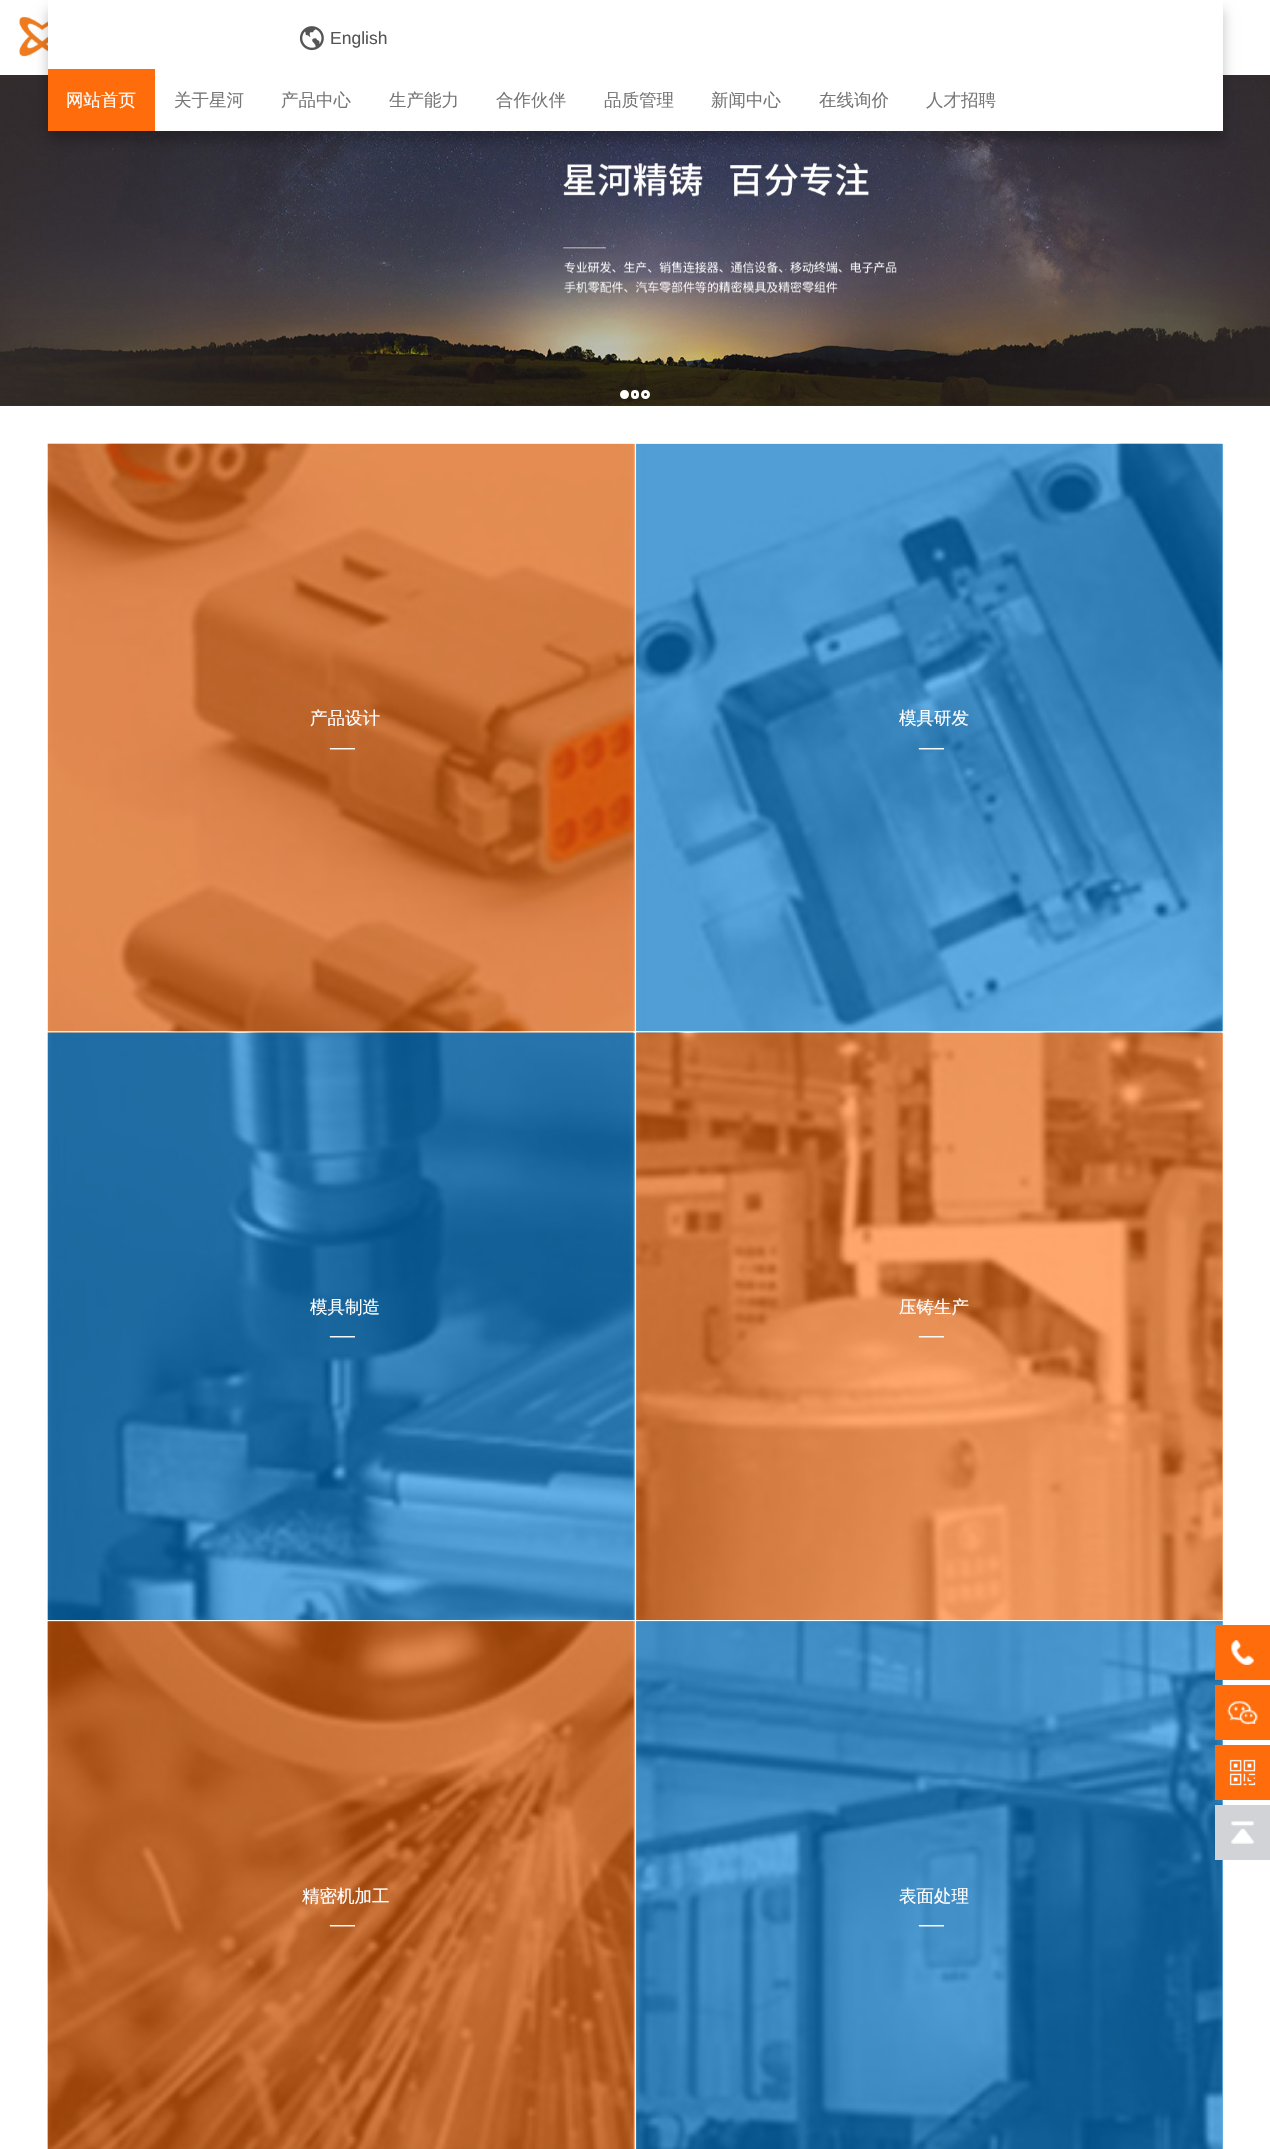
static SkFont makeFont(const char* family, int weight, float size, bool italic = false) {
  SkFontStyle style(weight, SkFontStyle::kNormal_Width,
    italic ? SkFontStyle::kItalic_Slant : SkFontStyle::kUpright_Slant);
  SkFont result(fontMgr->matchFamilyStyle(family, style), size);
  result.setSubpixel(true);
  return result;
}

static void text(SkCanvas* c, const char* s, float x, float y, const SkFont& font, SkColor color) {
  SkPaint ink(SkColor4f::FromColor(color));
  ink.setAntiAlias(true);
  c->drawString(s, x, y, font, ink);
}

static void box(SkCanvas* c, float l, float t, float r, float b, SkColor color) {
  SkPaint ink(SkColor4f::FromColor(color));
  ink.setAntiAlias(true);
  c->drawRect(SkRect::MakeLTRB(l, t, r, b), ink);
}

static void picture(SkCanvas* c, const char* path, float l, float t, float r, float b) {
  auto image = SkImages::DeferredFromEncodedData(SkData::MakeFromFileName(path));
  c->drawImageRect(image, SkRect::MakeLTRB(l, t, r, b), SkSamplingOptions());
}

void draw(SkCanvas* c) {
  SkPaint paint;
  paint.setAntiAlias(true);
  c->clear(0xffffffff);
  box(c, 636, 1621, 1223, 2149, 0xff67b4eb);
  box(c, 48, 1621, 635, 2149, 0xfffea76d);
  box(c, 636, 1033, 1223, 1620, 0xfffea76d);
  box(c, 633, 1033, 635, 1620, 0xff67b4eb);
  box(c, 636, 444, 1223, 1031, 0xff67b4eb);
  box(c, 633, 444, 635, 1031, 0xfffea76d);
  picture(c, "img_01.png", 19, 16, 48, 57);
  picture(c, "img_03.png", 0, 75, 1270, 406);
  paint.setColor(0x3d000000);
  paint.setMaskFilter(SkMaskFilter::MakeBlur(kNormal_SkBlurStyle, 6));
  c->drawRect(SkRect::MakeLTRB(48, 10, 1223, 141), paint);
  paint.setMaskFilter(nullptr);
  box(c, 48, 0, 1223, 131, 0xffffffff);
  picture(c, "img_02.png", 299, 26, 324, 51);
  SkFont face1 = makeFont("Liberation Sans", 400, 17.5f);
  text(c, "English", 330, 44, face1, 0xff555555);
  box(c, 48, 69, 155, 131, 0xfffe6c0b);
  SkFont face2 = makeFont("WenQuanYi Zen Hei", 500, 17.5f);
  text(c, "网站首页", 66, 106, face2, 0xffffffff);
  text(c, "关于星河", 174, 106, face2, 0xff777777);
  text(c, "产品中心", 281, 106, face2, 0xff777777);
  text(c, "生产能力", 389, 106, face2, 0xff777777);
  text(c, "合作伙伴", 496, 106, face2, 0xff777777);
  text(c, "品质管理", 604, 106, face2, 0xff777777);
  text(c, "新闻中心", 711, 106, face2, 0xff777777);
  text(c, "在线询价", 819, 106, face2, 0xff777777);
  text(c, "人才招聘", 926, 106, face2, 0xff777777);
  paint.setColor(0xffffffff);
  c->drawCircle(624.5f, 394.5f, 3, paint);
  paint.setStyle(SkPaint::kStroke_Style);
  paint.setStrokeWidth(3);
  c->drawCircle(624.5f, 394.5f, 3, paint);
  c->drawRoundRect(SkRect::MakeLTRB(632.5f, 391.5f, 637.5f, 397.5f), 2.5f, 2.5f, paint);
  c->drawCircle(645.5f, 394.5f, 3, paint);
  picture(c, "img_04.png", 47, 443, 634, 1032);
  text(c, "产品设计", 310, 724, face2, 0xffffffff);
  text(c, "──", 330, 754, face1, 0xffffffff);
  picture(c, "img_05.png", 636, 443, 1223, 1032);
  text(c, "模具研发", 899, 724, face2, 0xffffffff);
  text(c, "──", 919, 754, face1, 0xffffffff);
  picture(c, "img_06.png", 47, 1032, 634, 1620);
  text(c, "模具制造", 310, 1313, face2, 0xffffffff);
  text(c, "──", 330, 1342, face1, 0xffffffff);
  picture(c, "img_07.png", 636, 1032, 1223, 1620);
  text(c, "压铸生产", 899, 1313, face2, 0xffffffff);
  text(c, "──", 919, 1342, face1, 0xffffffff);
  picture(c, "img_08.png", 47, 1621, 634, 2149);
  text(c, "精密机加工", 302, 1902, face2, 0xffffffff);
  text(c, "──", 330, 1931, face1, 0xffffffff);
  picture(c, "img_09.png", 636, 1621, 1223, 2149);
  text(c, "表面处理", 899, 1902, face2, 0xffffffff);
  text(c, "──", 919, 1931, face1, 0xffffffff);
  box(c, 1215, 1625, 1270, 1680, 0xfffe6c0b);
  picture(c, "img_10.png", 1231, 1640, 1254, 1665);
  box(c, 1215, 1685, 1270, 1740, 0xfffe6c0b);
  picture(c, "img_11.png", 1227, 1701, 1258, 1725);
  box(c, 1215, 1745, 1270, 1800, 0xfffe6c0b);
  picture(c, "img_12.png", 1229, 1759, 1256, 1786);
  box(c, 1215, 1805, 1270, 1860, 0xffd2d3d6);
  picture(c, "img_13.png", 1231, 1821, 1254, 1844);
}
